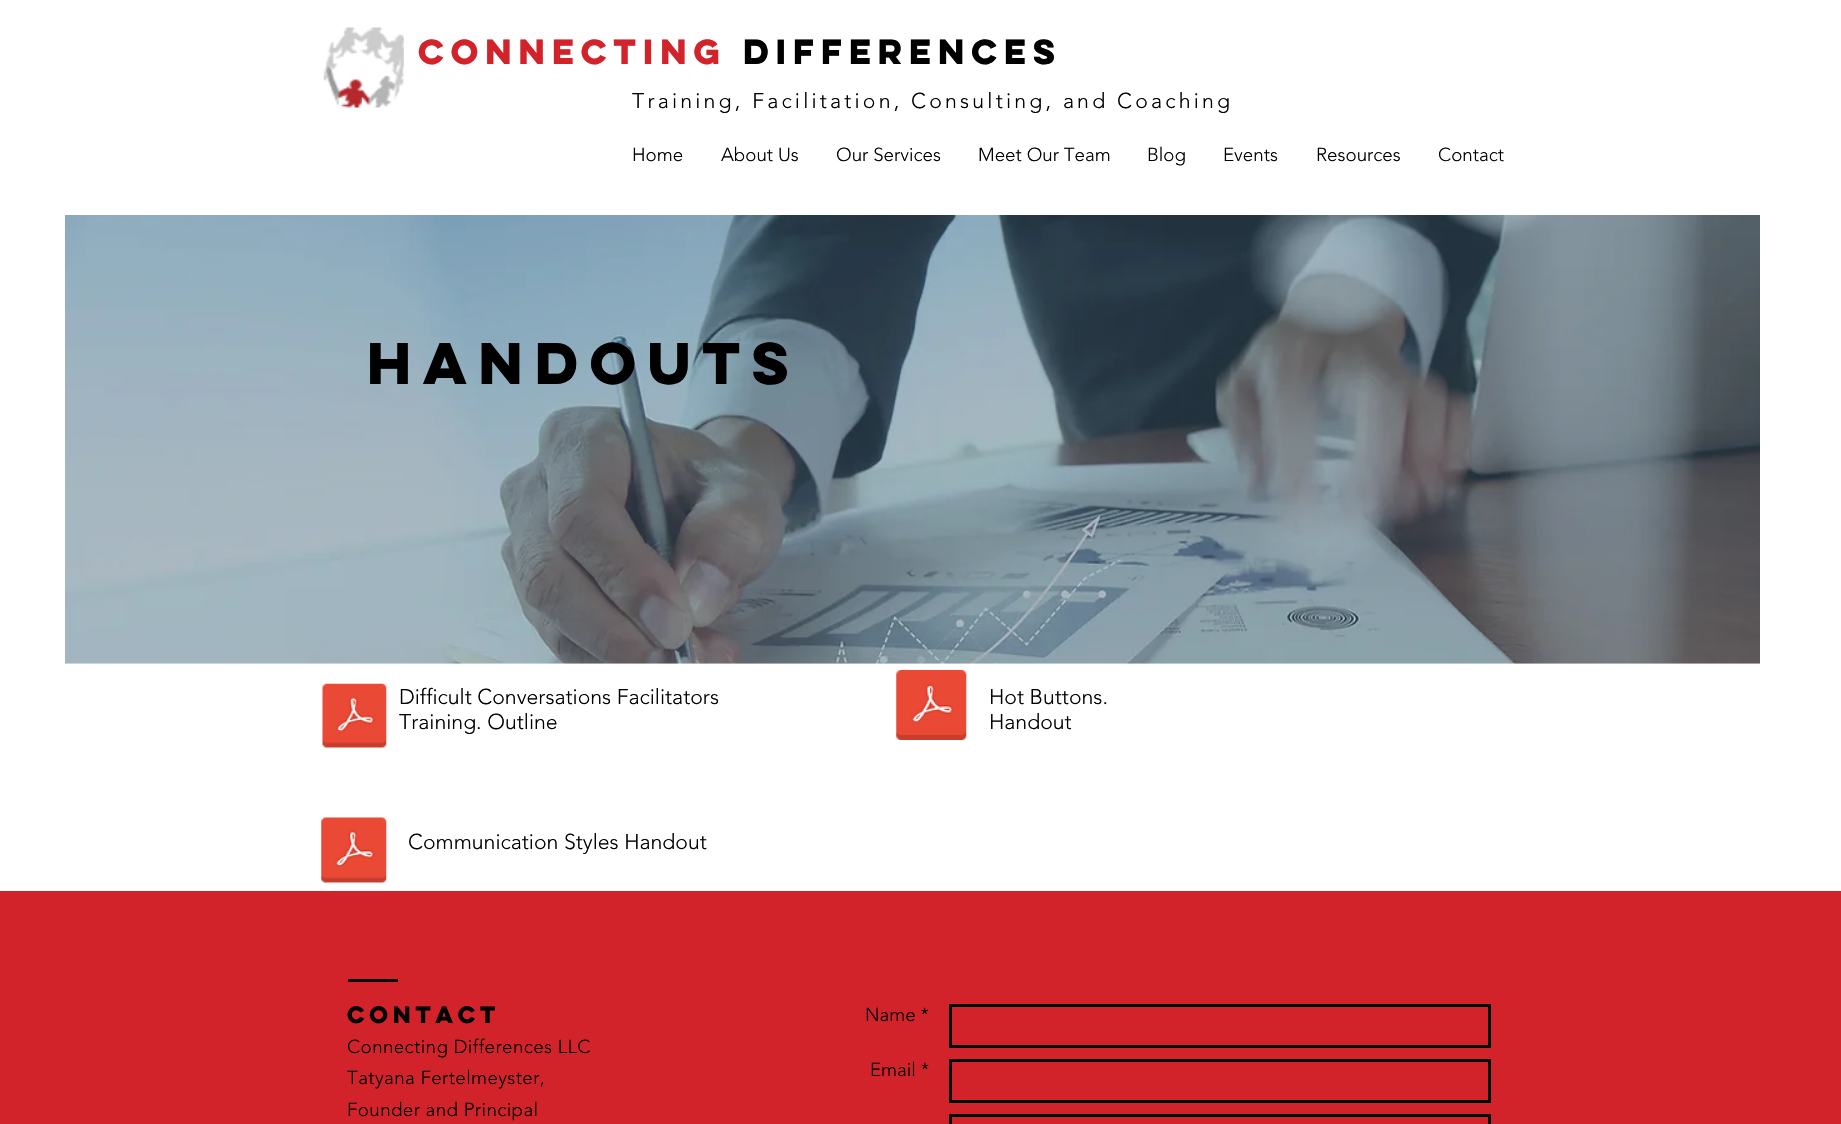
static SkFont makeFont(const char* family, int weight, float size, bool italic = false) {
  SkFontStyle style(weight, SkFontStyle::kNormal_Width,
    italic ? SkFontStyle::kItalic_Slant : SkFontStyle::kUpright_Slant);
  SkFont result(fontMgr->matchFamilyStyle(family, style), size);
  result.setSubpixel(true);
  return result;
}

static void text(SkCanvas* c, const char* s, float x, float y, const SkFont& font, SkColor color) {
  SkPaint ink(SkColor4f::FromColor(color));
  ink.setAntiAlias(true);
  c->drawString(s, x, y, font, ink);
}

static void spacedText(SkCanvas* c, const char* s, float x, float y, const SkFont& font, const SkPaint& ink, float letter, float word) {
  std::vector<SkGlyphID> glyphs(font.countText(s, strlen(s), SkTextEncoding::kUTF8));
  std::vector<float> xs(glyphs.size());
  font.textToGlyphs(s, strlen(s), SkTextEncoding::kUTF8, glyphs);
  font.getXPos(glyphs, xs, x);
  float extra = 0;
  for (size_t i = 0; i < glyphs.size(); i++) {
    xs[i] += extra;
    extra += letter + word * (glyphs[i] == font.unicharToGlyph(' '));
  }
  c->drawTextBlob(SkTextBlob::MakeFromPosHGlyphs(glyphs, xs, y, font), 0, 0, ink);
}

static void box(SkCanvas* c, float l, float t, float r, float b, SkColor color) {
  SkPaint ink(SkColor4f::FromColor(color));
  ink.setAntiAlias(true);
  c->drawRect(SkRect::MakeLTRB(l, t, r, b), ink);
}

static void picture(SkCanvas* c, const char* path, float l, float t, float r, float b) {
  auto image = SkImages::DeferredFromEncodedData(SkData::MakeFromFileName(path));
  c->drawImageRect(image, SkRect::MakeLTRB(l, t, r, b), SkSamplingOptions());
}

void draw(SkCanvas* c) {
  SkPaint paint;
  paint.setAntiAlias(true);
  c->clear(0xffffffff);
  picture(c, "img_01.png", 323, 27, 404, 108);
  SkFont face1 = makeFont("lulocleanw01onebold", 700, 31.25f);
  text(c, "CONNECTING", 418, 64, face1, 0xffd2232a);
  text(c, "DIFFERENCES", 743, 64, face1, 0xff000000);
  SkFont face2 = makeFont("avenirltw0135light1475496", 300, 21.25f);
  paint.setColor(0xff000000);
  spacedText(c, "Training, Facilitation, Consulting, and Coaching", 632, 108, face2, paint, 3.2f, 0);
  SkFont face3 = makeFont("avenirltw0135light1475496", 300, 18.75f);
  text(c, "Home", 632, 161, face3, 0xff000000);
  text(c, "About Us", 721, 161, face3, 0xff000000);
  text(c, "Our Services", 836, 161, face3, 0xff000000);
  text(c, "Meet Our Team", 978, 161, face3, 0xff000000);
  text(c, "Blog", 1147, 161, face3, 0xff000000);
  text(c, "Events", 1223, 161, face3, 0xff000000);
  text(c, "Resources", 1316, 161, face3, 0xff000000);
  text(c, "Contact", 1438, 161, face3, 0xff000000);
  picture(c, "img_02.png", 65, 215, 1760, 664);
  SkFont face4 = makeFont("lulocleanw01onebold", 700, 52.5f);
  text(c, "Handouts", 367, 384, face4, 0xff000000);
  picture(c, "img_03.png", 322, 683, 387, 748);
  text(c, "Difficult Conversations Facilitators", 399, 704, face2, 0xff000000);
  text(c, "Training. Outline", 399, 729, face2, 0xff000000);
  picture(c, "img_04.png", 896, 670, 967, 740);
  text(c, "Hot Buttons.", 989, 704, face2, 0xff000000);
  text(c, "Handout", 989, 729, face2, 0xff000000);
  picture(c, "img_05.png", 321, 817, 387, 883);
  text(c, "Communication Styles Handout", 408, 849, face2, 0xff000000);
  box(c, 0, 891, 1841, 1124, 0xffd2232a);
  box(c, 348, 979, 398, 982, 0xff000000);
  SkFont face5 = makeFont("lulocleanw01onebold", 700, 21.25f);
  text(c, "Contact", 347, 1023, face5, 0xff000000);
  text(c, "Name *", 865, 1021, face3, 0xff000000);
  paint.setStyle(SkPaint::kStroke_Style);
  paint.setStrokeWidth(3);
  c->drawRect(SkRect::MakeLTRB(950.5f, 1005.5f, 1489.5f, 1046.5f), paint);
  text(c, "Email *", 870, 1076, face3, 0xff000000);
  c->drawRect(SkRect::MakeLTRB(950.5f, 1060.5f, 1489.5f, 1101.5f), paint);
  c->drawRect(SkRect::MakeLTRB(950.5f, 1115.5f, 1489.5f, 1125.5f), paint);
  paint.setStyle(SkPaint::kFill_Style);
  spacedText(c, "Connecting Differences LLC", 347, 1053, face3, paint, 0.4f, 0);
  spacedText(c, "Tatyana Fertelmeyster,", 347, 1084, face3, paint, 0.4f, 0);
  spacedText(c, "Founder and Principal", 347, 1116, face3, paint, 0.4f, 0);
}
